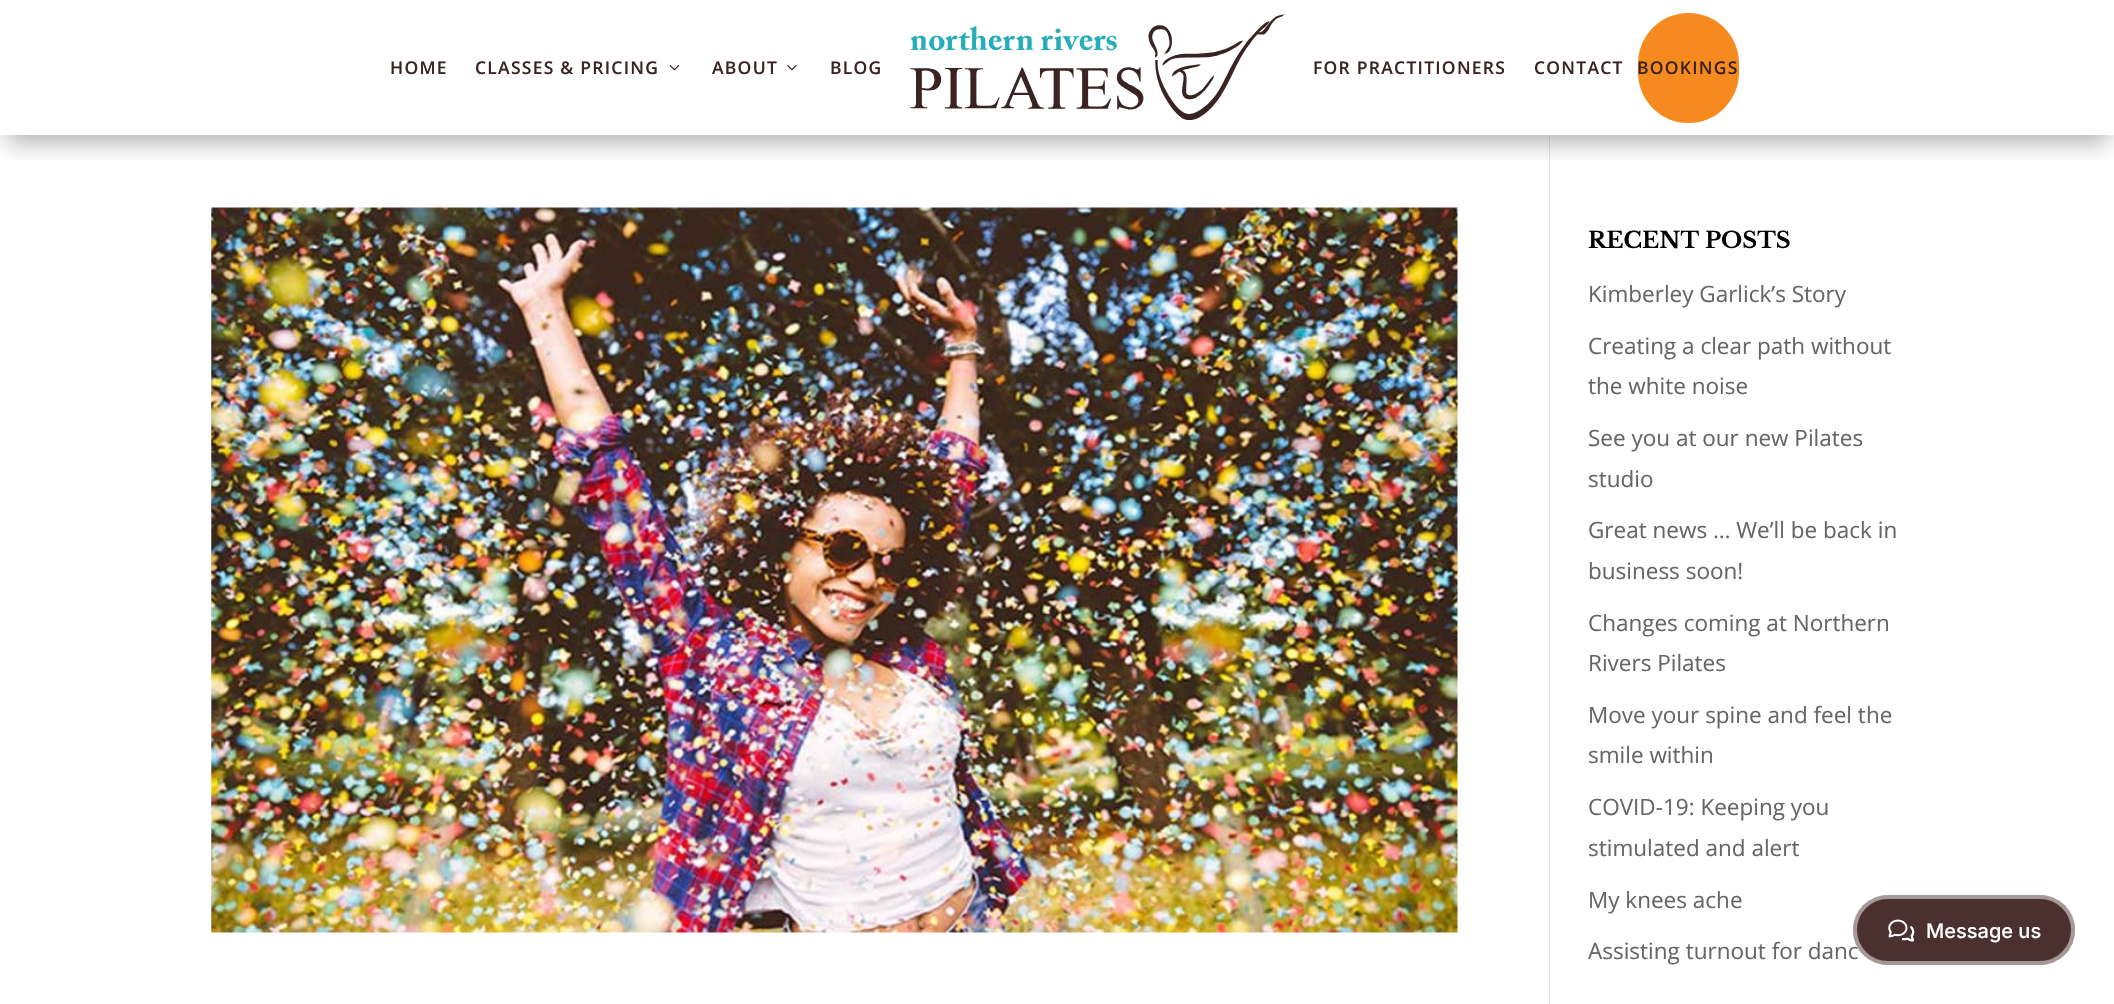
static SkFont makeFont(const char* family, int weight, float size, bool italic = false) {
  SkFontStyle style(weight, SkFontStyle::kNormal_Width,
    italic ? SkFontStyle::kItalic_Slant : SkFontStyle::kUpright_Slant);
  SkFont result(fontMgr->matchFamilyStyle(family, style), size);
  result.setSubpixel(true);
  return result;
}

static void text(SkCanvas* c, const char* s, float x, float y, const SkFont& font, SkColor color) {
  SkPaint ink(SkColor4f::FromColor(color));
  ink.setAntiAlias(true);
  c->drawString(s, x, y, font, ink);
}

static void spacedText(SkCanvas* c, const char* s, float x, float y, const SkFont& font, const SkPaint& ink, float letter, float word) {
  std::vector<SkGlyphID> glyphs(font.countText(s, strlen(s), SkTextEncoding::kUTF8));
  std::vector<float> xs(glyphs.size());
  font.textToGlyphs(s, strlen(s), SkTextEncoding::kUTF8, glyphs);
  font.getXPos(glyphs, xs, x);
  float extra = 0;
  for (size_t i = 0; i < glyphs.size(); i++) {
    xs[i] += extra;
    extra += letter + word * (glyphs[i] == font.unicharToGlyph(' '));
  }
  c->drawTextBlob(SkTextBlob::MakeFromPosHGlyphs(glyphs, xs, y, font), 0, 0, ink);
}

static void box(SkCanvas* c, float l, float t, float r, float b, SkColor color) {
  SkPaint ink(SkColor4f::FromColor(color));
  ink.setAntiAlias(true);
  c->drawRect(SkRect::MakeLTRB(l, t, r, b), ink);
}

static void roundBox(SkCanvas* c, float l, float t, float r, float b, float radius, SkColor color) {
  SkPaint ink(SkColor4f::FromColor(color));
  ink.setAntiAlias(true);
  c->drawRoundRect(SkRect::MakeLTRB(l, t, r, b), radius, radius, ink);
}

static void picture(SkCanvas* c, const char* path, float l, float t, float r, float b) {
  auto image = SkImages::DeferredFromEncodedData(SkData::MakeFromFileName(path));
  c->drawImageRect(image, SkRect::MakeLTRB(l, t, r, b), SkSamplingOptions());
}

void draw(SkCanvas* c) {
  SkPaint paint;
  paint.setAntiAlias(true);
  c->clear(0xffffffff);
  box(c, 1549, 135, 1550, 1004, 0xffe2e2e2);
  c->save();
  c->clipRect(SkRect::MakeLTRB(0, 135, 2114, 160));
  paint.setColor(0x4d000000);
  paint.setMaskFilter(SkMaskFilter::MakeBlur(kNormal_SkBlurStyle, 11));
  c->drawRect(SkRect::MakeLTRB(8, 23, 2108, 143), paint);
  paint.setMaskFilter(nullptr);
  c->restore();
  SkFont face1 = makeFont("Open Sans", 600, 17.5f);
  paint.setColor(0xff392423);
  spacedText(c, "HOME", 390, 74, face1, paint, 1.25f, 0);
  spacedText(c, "CLASSES & PRICING", 475, 74, face1, paint, 1.25f, 0);
  picture(c, "img_01.png", 669, 65, 679, 71);
  spacedText(c, "ABOUT", 712, 74, face1, paint, 1.25f, 0);
  picture(c, "img_02.png", 787, 65, 797, 71);
  spacedText(c, "BLOG", 830, 74, face1, paint, 1.25f, 0);
  picture(c, "img_03.png", 910, 14, 1285, 120);
  spacedText(c, "FOR PRACTITIONERS", 1313, 74, face1, paint, 1.25f, 0);
  spacedText(c, "CONTACT", 1534, 74, face1, paint, 1.25f, 0);
  roundBox(c, 1638, 13, 1739, 123, 50.5f, 0xfff68a1f);
  spacedText(c, "BOOKINGS", 1637, 74, face1, paint, 1.25f, 0);
  picture(c, "img_04.png", 211, 207, 1458, 933);
  SkFont face2 = makeFont("Libre Baskerville", 700, 22.5f);
  text(c, "RECENT POSTS", 1588, 248, face2, 0xff000000);
  SkFont face3 = makeFont("Open Sans", 400, 22.5f);
  text(c, "Kimberley Garlick’s Story", 1588, 302, face3, 0xff666666);
  text(c, "Creating a clear path without", 1588, 354, face3, 0xff666666);
  text(c, "the white noise", 1588, 394, face3, 0xff666666);
  text(c, "See you at our new Pilates", 1588, 446, face3, 0xff666666);
  text(c, "studio", 1588, 487, face3, 0xff666666);
  text(c, "Great news … We’ll be back in", 1588, 538, face3, 0xff666666);
  text(c, "business soon!", 1588, 579, face3, 0xff666666);
  text(c, "Changes coming at Northern", 1588, 631, face3, 0xff666666);
  text(c, "Rivers Pilates", 1588, 671, face3, 0xff666666);
  text(c, "Move your spine and feel the", 1588, 723, face3, 0xff666666);
  text(c, "smile within", 1588, 763, face3, 0xff666666);
  text(c, "COVID-19: Keeping you", 1588, 815, face3, 0xff666666);
  text(c, "stimulated and alert", 1588, 856, face3, 0xff666666);
  text(c, "My knees ache", 1588, 908, face3, 0xff666666);
  text(c, "Assisting turnout for danc", 1588, 959, face3, 0xff666666);
  roundBox(c, 1853, 895, 2075, 965, 35, 0xff4a302f);
  paint.setStyle(SkPaint::kStroke_Style);
  paint.setStrokeWidth(4);
  paint.setColor(0x80ffffff);
  c->drawRoundRect(SkRect::MakeLTRB(1855, 897, 2073, 963), 33, 33, paint);
  picture(c, "img_05.png", 1888, 919, 1915, 942);
  SkFont face4 = makeFont("Inter", 500, 20);
  text(c, "Message us", 1926, 938, face4, 0xffffffff);
}
